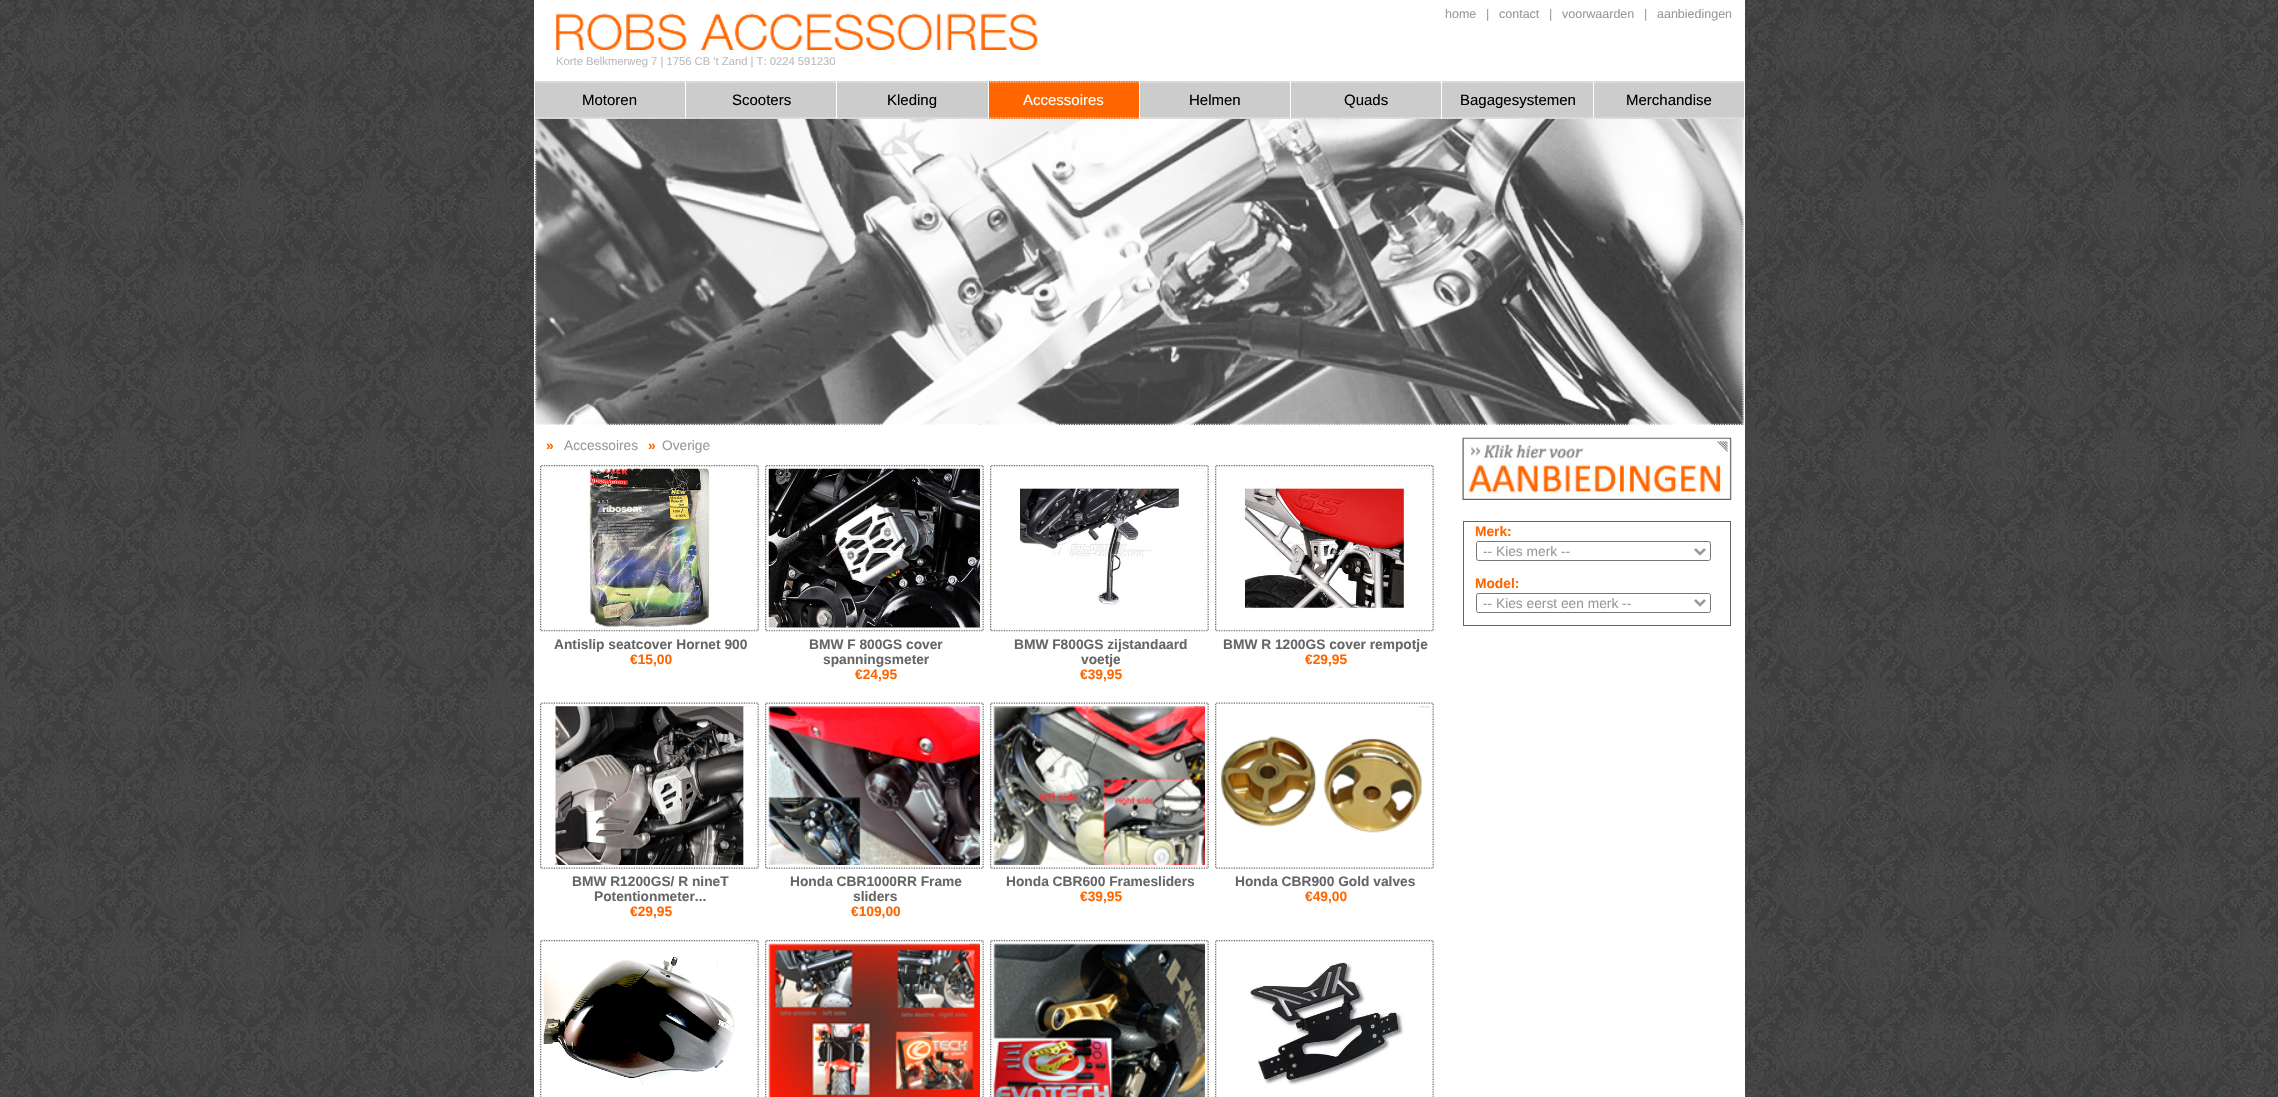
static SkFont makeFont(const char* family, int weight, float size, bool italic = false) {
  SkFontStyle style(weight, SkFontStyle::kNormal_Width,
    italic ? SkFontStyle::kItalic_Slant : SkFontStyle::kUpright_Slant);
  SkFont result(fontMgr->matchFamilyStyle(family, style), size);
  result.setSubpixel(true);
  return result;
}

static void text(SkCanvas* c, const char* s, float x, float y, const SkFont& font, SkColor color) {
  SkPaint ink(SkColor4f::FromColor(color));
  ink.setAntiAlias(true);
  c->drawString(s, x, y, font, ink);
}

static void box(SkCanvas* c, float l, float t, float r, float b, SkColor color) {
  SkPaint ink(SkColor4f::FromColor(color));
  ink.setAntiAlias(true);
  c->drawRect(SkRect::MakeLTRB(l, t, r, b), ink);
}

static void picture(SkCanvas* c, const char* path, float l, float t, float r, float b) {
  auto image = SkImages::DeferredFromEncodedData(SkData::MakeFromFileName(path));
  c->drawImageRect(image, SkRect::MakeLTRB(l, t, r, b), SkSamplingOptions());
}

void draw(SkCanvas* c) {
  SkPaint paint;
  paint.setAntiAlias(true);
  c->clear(0xffffffff);
  picture(c, "img_01.png", 0, 0, 2278, 1097);
  box(c, 534, 0, 1745, 1097, 0xffffffff);
  SkFont face1 = makeFont("Liberation Sans", 400, 12.5f);
  text(c, "home", 1445, 18, face1, 0xff999999);
  text(c, "|", 1486, 18, face1, 0xff999999);
  text(c, "contact", 1499, 18, face1, 0xff999999);
  text(c, "|", 1549, 18, face1, 0xff999999);
  text(c, "voorwaarden", 1562, 18, face1, 0xff999999);
  text(c, "|", 1644, 18, face1, 0xff999999);
  text(c, "aanbiedingen", 1657, 18, face1, 0xff999999);
  picture(c, "img_02.png", 556, 13, 1038, 50);
  SkFont face2 = makeFont("Liberation Sans", 400, 11.25f);
  text(c, "Korte Belkmerweg 7 | 1756 CB 't Zand | T: 0224 591230", 556, 65, face2, 0xffbbbbbb);
  box(c, 535, 81, 685, 119, 0xffcccccc);
  picture(c, "img_03.png", 535, 81, 685, 83);
  SkFont face3 = makeFont("Liberation Sans", 400, 15);
  text(c, "Motoren", 582, 105, face3, 0xff000000);
  box(c, 686, 81, 836, 119, 0xffcccccc);
  picture(c, "img_04.png", 686, 81, 836, 83);
  text(c, "Scooters", 732, 105, face3, 0xff000000);
  box(c, 837, 81, 988, 119, 0xffcccccc);
  picture(c, "img_05.png", 837, 81, 988, 83);
  text(c, "Kleding", 887, 105, face3, 0xff000000);
  box(c, 989, 81, 1139, 119, 0xffff6600);
  picture(c, "img_06.png", 987, 81, 1139, 83);
  text(c, "Accessoires", 1023, 105, face3, 0xffffffff);
  box(c, 1140, 81, 1290, 119, 0xffcccccc);
  picture(c, "img_07.png", 1138, 81, 1290, 83);
  text(c, "Helmen", 1189, 105, face3, 0xff000000);
  box(c, 1291, 81, 1441, 119, 0xffcccccc);
  picture(c, "img_04.png", 1291, 81, 1441, 83);
  text(c, "Quads", 1344, 105, face3, 0xff000000);
  box(c, 1442, 81, 1593, 119, 0xffcccccc);
  picture(c, "img_05.png", 1442, 81, 1593, 83);
  text(c, "Bagagesystemen", 1460, 105, face3, 0xff000000);
  box(c, 1594, 81, 1744, 119, 0xffcccccc);
  picture(c, "img_08.png", 1592, 81, 1744, 83);
  text(c, "Merchandise", 1626, 105, face3, 0xff000000);
  picture(c, "img_10.png", 535, 118, 1744, 425);
  picture(c, "img_09.png", 533, 117, 1744, 119);
  picture(c, "img_11.png", 535, 119, 537, 424);
  picture(c, "img_12.png", 1742, 120, 1744, 425);
  picture(c, "img_13.png", 533, 423, 1744, 425);
  SkFont face4 = makeFont("Liberation Sans", 700, 13.75f);
  text(c, "»", 546, 450, face4, 0xffff6600);
  SkFont face5 = makeFont("Liberation Sans", 400, 13.75f);
  text(c, "Accessoires", 564, 450, face5, 0xff999999);
  text(c, "»", 648, 450, face4, 0xffff6600);
  text(c, "Overige", 662, 450, face5, 0xff999999);
  picture(c, "img_14.png", 540, 466, 758, 632);
  picture(c, "img_15.png", 541, 465, 759, 631);
  picture(c, "img_16.png", 589, 468, 755, 627);
  text(c, "Antislip seatcover Hornet 900", 554, 649, face4, 0xff666666);
  text(c, "€15,00", 630, 664, face4, 0xffff6600);
  picture(c, "img_17.png", 765, 466, 983, 632);
  picture(c, "img_18.png", 766, 465, 984, 631);
  picture(c, "img_19.png", 768, 468, 980, 628);
  text(c, "BMW F 800GS cover", 809, 649, face4, 0xff666666);
  text(c, "spanningsmeter", 823, 664, face4, 0xff666666);
  text(c, "€24,95", 855, 679, face4, 0xffff6600);
  picture(c, "img_20.png", 990, 466, 1208, 632);
  picture(c, "img_21.png", 991, 465, 1209, 631);
  picture(c, "img_22.png", 1020, 468, 1205, 605);
  text(c, "BMW F800GS zijstandaard", 1014, 649, face4, 0xff666666);
  text(c, "voetje", 1081, 664, face4, 0xff666666);
  text(c, "€39,95", 1080, 679, face4, 0xffff6600);
  picture(c, "img_23.png", 1215, 466, 1433, 632);
  picture(c, "img_24.png", 1216, 465, 1434, 631);
  picture(c, "img_25.png", 1244, 468, 1430, 611);
  text(c, "BMW R 1200GS cover rempotje", 1223, 649, face4, 0xff666666);
  text(c, "€29,95", 1305, 664, face4, 0xffff6600);
  picture(c, "img_26.png", 540, 703, 758, 869);
  picture(c, "img_27.png", 541, 702, 759, 868);
  picture(c, "img_28.png", 555, 706, 755, 865);
  text(c, "BMW R1200GS/ R nineT", 572, 886, face4, 0xff666666);
  text(c, "Potentionmeter...", 594, 901, face4, 0xff666666);
  text(c, "€29,95", 630, 916, face4, 0xffff6600);
  picture(c, "img_29.png", 765, 703, 983, 869);
  picture(c, "img_30.png", 766, 702, 984, 868);
  picture(c, "img_31.png", 768, 706, 980, 865);
  text(c, "Honda CBR1000RR Frame", 790, 886, face4, 0xff666666);
  text(c, "sliders", 853, 901, face4, 0xff666666);
  text(c, "€109,00", 851, 916, face4, 0xffff6600);
  picture(c, "img_32.png", 990, 703, 1208, 869);
  picture(c, "img_33.png", 991, 702, 1209, 868);
  picture(c, "img_34.png", 993, 706, 1205, 865);
  text(c, "Honda CBR600 Framesliders", 1006, 886, face4, 0xff666666);
  text(c, "€39,95", 1080, 901, face4, 0xffff6600);
  picture(c, "img_35.png", 1215, 703, 1433, 869);
  picture(c, "img_36.png", 1216, 702, 1434, 868);
  picture(c, "img_37.png", 1221, 706, 1430, 833);
  text(c, "Honda CBR900 Gold valves", 1235, 886, face4, 0xff666666);
  text(c, "€49,00", 1305, 901, face4, 0xffff6600);
  picture(c, "img_38.png", 540, 941, 542, 1097);
  picture(c, "img_39.png", 541, 940, 759, 1097);
  picture(c, "img_40.png", 543, 943, 755, 1084);
  picture(c, "img_38.png", 765, 941, 767, 1097);
  picture(c, "img_41.png", 766, 940, 984, 1097);
  picture(c, "img_42.png", 768, 943, 980, 1097);
  picture(c, "img_38.png", 990, 941, 992, 1097);
  picture(c, "img_43.png", 991, 940, 1209, 1097);
  picture(c, "img_44.png", 993, 943, 1205, 1097);
  picture(c, "img_38.png", 1215, 941, 1217, 1097);
  picture(c, "img_45.png", 1216, 940, 1434, 1097);
  picture(c, "img_46.png", 1249, 943, 1430, 1085);
  picture(c, "img_47.png", 1462, 437, 1732, 500);
  paint.setStyle(SkPaint::kStroke_Style);
  paint.setStrokeWidth(1);
  paint.setColor(0xff666666);
  c->drawRect(SkRect::MakeLTRB(1463.5f, 521.5f, 1730.5f, 625.5f), paint);
  text(c, "Merk:", 1475, 536, face4, 0xffff6600);
  paint.setColor(0xff767676);
  c->drawRoundRect(SkRect::MakeLTRB(1476.5f, 541.5f, 1710.5f, 560.5f), 2, 2, paint);
  paint.setStrokeWidth(2.5f);
  paint.setColor(0xff999999);
  c->drawPath(SkPathBuilder().moveTo(1695, 549).lineTo(1700, 554).lineTo(1705, 549).detach(), paint);
  text(c, "-- Kies merk --", 1483, 556, face5, 0xff999999);
  text(c, "Model:", 1475, 588, face4, 0xffff6600);
  paint.setStrokeWidth(1);
  paint.setColor(0xff767676);
  c->drawRoundRect(SkRect::MakeLTRB(1476.5f, 593.5f, 1710.5f, 612.5f), 2, 2, paint);
  paint.setStrokeWidth(2.5f);
  paint.setColor(0xff999999);
  c->drawPath(SkPathBuilder().moveTo(1695, 600).lineTo(1700, 605).lineTo(1705, 600).detach(), paint);
  text(c, "-- Kies eerst een merk --", 1483, 608, face5, 0xff999999);
}
